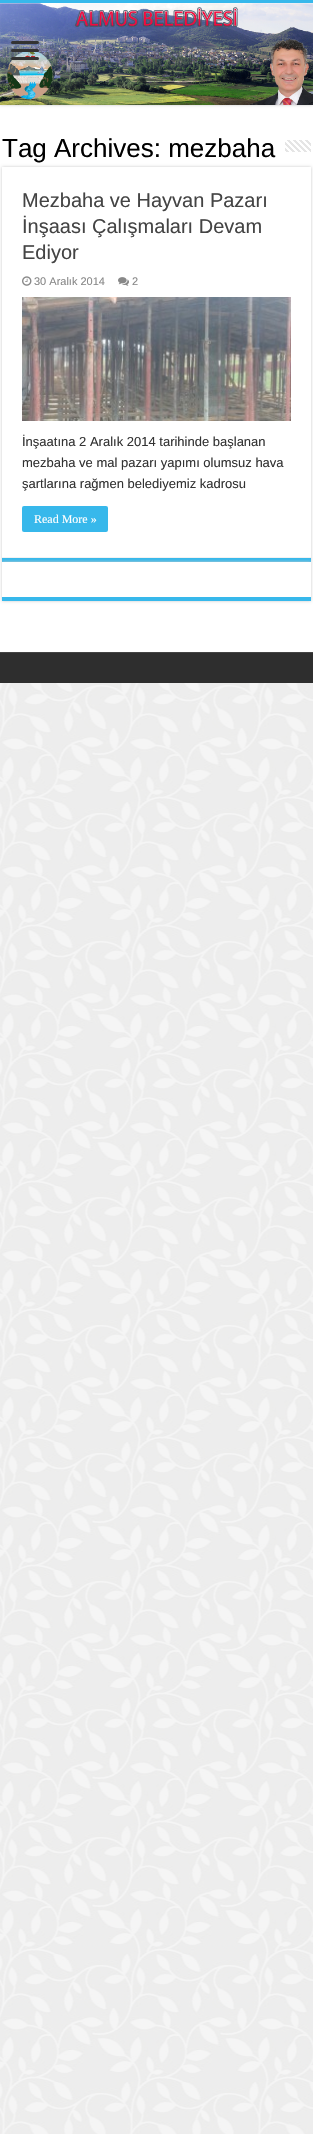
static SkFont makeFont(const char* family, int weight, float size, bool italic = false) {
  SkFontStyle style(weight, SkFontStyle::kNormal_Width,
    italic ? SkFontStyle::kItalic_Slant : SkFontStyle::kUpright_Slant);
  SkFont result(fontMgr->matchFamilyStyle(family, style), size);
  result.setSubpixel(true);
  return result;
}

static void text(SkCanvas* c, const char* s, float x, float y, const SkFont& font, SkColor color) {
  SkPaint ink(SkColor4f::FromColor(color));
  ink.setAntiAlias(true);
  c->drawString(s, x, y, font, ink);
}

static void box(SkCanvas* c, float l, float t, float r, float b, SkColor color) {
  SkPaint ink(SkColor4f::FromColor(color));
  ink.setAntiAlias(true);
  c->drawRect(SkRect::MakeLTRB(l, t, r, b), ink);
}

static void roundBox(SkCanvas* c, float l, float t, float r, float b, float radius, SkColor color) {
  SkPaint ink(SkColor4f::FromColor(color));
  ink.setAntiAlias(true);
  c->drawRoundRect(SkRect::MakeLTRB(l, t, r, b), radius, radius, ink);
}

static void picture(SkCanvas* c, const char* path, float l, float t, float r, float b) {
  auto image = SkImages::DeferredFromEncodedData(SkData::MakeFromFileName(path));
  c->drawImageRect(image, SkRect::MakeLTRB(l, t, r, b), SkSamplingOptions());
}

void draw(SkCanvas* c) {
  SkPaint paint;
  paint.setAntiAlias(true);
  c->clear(0xfff2f2f2);
  picture(c, "img_01.png", 0, 683, 313, 2134);
  box(c, 0, 105, 313, 652, 0xffffffff);
  paint.setColor(0xffcacaca);
  paint.setMaskFilter(SkMaskFilter::MakeBlur(kNormal_SkBlurStyle, 1.5f));
  c->drawRect(SkRect::MakeLTRB(0, 0, 313, 105), paint);
  paint.setMaskFilter(nullptr);
  box(c, 0, 0, 313, 3, 0xff37b8eb);
  picture(c, "img_02.png", 0, 3, 313, 105);
  roundBox(c, 11, 41, 39, 44, 1.5f, 0xff333333);
  roundBox(c, 11, 49, 39, 52, 1.5f, 0xff333333);
  roundBox(c, 11, 57, 39, 60, 1.5f, 0xff333333);
  c->save();
  c->clipPath(SkPathBuilder(SkPathFillType::kEvenOdd).moveTo(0, 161).lineTo(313, 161).lineTo(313, 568).lineTo(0, 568).close().moveTo(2, 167).lineTo(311, 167).lineTo(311, 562).lineTo(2, 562).close().detach(), true);
  paint.setMaskFilter(SkMaskFilter::MakeBlur(kNormal_SkBlurStyle, 1.5f));
  c->drawRect(SkRect::MakeLTRB(2, 167, 311, 562), paint);
  paint.setMaskFilter(nullptr);
  c->restore();
  SkFont face1 = makeFont("Liberation Sans", 400, 26);
  text(c, "Tag Archives: mezbaha", 2, 157, face1, 0xff000000);
  picture(c, "img_03.png", 285, 140, 311, 152);
  box(c, 2, 558, 311, 562, 0xff37b8eb);
  box(c, 2, 557, 311, 558, 0xfff2f2f2);
  SkFont face2 = makeFont("Liberation Sans", 400, 20);
  text(c, "Mezbaha ve Hayvan Pazarı", 22, 207, face2, 0xff444444);
  text(c, "İnşaası Çalışmaları Devam", 22, 233, face2, 0xff444444);
  text(c, "Ediyor", 22, 259, face2, 0xff444444);
  picture(c, "img_04.png", 22, 276, 32, 286);
  SkFont face3 = makeFont("Liberation Sans", 400, 11);
  text(c, "30 Aralık 2014", 34, 285, face3, 0xff888888);
  picture(c, "img_05.png", 118, 277, 129, 286);
  text(c, "2", 132, 285, face3, 0xff888888);
  picture(c, "img_06.png", 22, 297, 291, 421);
  SkFont face4 = makeFont("Liberation Sans", 400, 13);
  text(c, "İnşaatına 2 Aralık 2014 tarihinde başlanan", 22, 446, face4, 0xff333333);
  text(c, "mezbaha ve mal pazarı yapımı olumsuz hava", 22, 467, face4, 0xff333333);
  text(c, "şartlarına rağmen belediyemiz kadrosu", 22, 488, face4, 0xff333333);
  roundBox(c, 22, 506, 108, 532, 2, 0xff37b8eb);
  SkFont face5 = makeFont("Liberation Serif", 400, 12);
  text(c, "Read More »", 34, 523, face5, 0xffffffff);
  paint.setMaskFilter(SkMaskFilter::MakeBlur(kNormal_SkBlurStyle, 1.5f));
  c->drawRect(SkRect::MakeLTRB(2, 562, 311, 601), paint);
  paint.setMaskFilter(nullptr);
  box(c, 2, 562, 311, 597, 0xffffffff);
  box(c, 2, 597, 311, 601, 0xff37b8eb);
  box(c, 0, 653, 313, 683, 0xff2e2e2e);
  box(c, 0, 652, 313, 653, 0xff444444);
}
